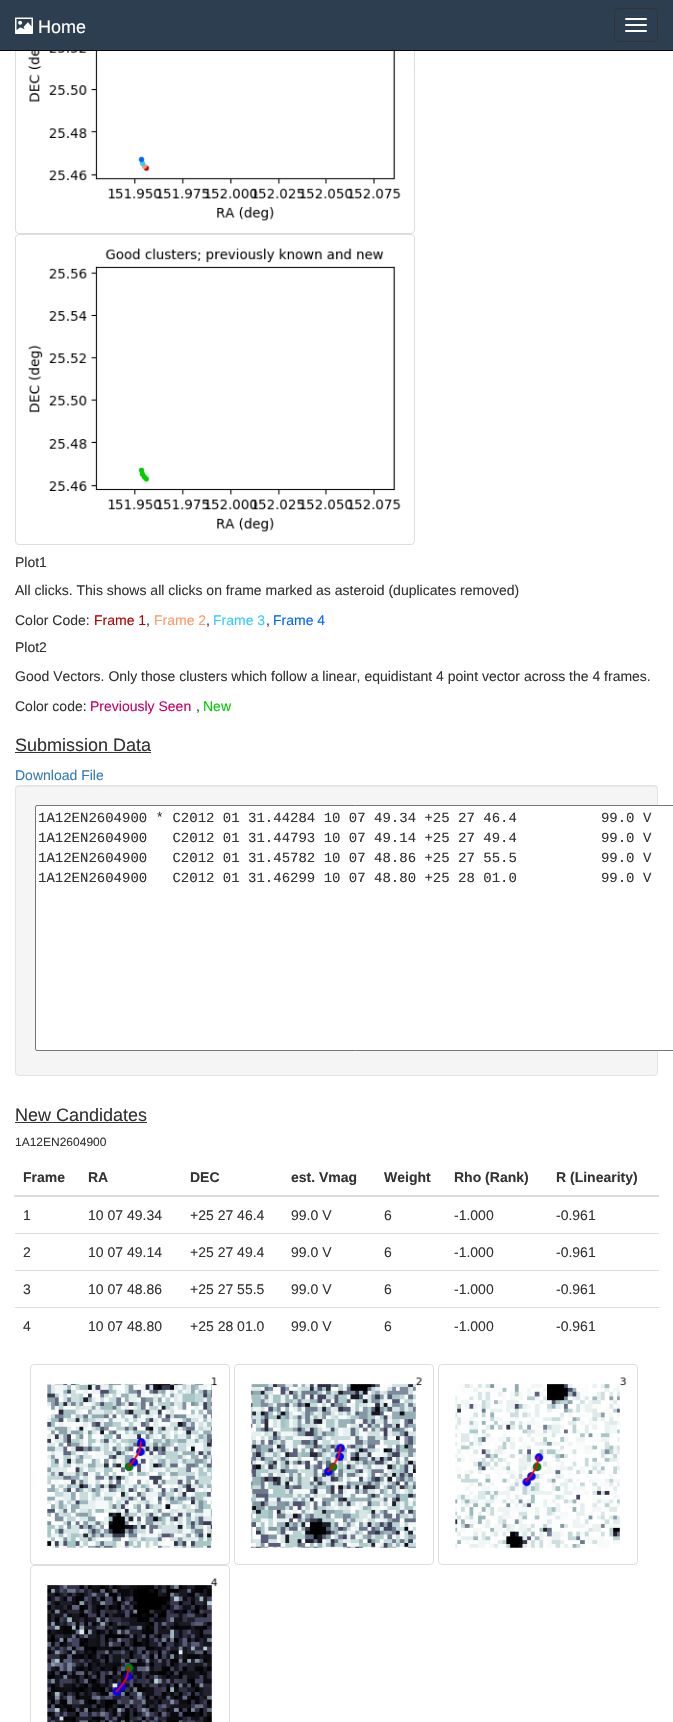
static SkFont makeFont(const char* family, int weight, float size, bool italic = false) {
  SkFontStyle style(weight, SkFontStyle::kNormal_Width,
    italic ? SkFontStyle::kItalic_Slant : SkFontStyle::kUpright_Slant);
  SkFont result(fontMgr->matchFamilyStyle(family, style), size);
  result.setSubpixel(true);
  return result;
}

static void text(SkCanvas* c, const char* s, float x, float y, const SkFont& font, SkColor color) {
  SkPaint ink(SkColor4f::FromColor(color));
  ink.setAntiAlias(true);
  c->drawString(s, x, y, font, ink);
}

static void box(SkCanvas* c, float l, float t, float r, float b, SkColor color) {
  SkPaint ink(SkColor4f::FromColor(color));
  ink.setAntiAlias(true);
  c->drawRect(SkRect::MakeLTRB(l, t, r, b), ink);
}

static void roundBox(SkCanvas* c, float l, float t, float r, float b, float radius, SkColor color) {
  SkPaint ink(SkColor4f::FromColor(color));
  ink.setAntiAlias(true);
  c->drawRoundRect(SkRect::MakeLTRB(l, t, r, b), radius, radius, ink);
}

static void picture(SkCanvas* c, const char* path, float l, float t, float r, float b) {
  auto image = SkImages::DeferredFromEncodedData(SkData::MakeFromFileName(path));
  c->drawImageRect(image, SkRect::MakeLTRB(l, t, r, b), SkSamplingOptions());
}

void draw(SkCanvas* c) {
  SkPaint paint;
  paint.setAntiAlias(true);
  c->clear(0xffffffff);
  paint.setStyle(SkPaint::kStroke_Style);
  paint.setStrokeWidth(1);
  paint.setColor(0xffdddddd);
  c->drawRoundRect(SkRect::MakeLTRB(15.5f, -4.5f, 414.5f, 233.5f), 3.5f, 3.5f, paint);
  box(c, 0, 0, 673, 50, 0xff2c3e50);
  box(c, 0, 50, 673, 51, 0xff080808);
  picture(c, "img_01.png", 15, 17, 33, 34);
  SkFont face1 = makeFont("Liberation Sans", 400, 18);
  text(c, "Home", 38, 33, face1, 0xffffffff);
  paint.setColor(0xff333333);
  c->drawRoundRect(SkRect::MakeLTRB(614.5f, 8.5f, 657.5f, 41.5f), 3.5f, 3.5f, paint);
  roundBox(c, 625, 18, 647, 20, 1, 0xffffffff);
  roundBox(c, 625, 24, 647, 26, 1, 0xffffffff);
  roundBox(c, 625, 30, 647, 32, 1, 0xffffffff);
  picture(c, "img_02.png", 28, 51, 401, 221);
  paint.setColor(0xffdddddd);
  c->drawRoundRect(SkRect::MakeLTRB(15.5f, 234.5f, 414.5f, 544.5f), 3.5f, 3.5f, paint);
  picture(c, "img_03.png", 28, 248, 401, 532);
  SkFont face2 = makeFont("Liberation Sans", 400, 14);
  text(c, "Plot1", 15, 567, face2, 0xff333333);
  text(c, "All clicks. This shows all clicks on frame marked as asteroid (duplicates removed)", 15, 595, face2, 0xff333333);
  text(c, "Color Code:", 15, 625, face2, 0xff333333);
  text(c, "Frame 1", 94, 625, face2, 0xffb80000);
  text(c, ",", 146, 625, face2, 0xff333333);
  text(c, "Frame 2", 154, 625, face2, 0xffff9966);
  text(c, ",", 206, 625, face2, 0xff333333);
  text(c, "Frame 3", 213, 625, face2, 0xff33ccff);
  text(c, ",", 266, 625, face2, 0xff333333);
  text(c, "Frame 4", 273, 625, face2, 0xff0066ff);
  text(c, "Plot2", 15, 652, face2, 0xff333333);
  text(c, "Good Vectors. Only those clusters which follow a linear, equidistant 4 point vector across the 4 frames.", 15, 681, face2, 0xff333333);
  text(c, "Color code:", 15, 711, face2, 0xff333333);
  text(c, "Previously Seen", 90, 711, face2, 0xffcc0066);
  text(c, ",", 196, 711, face2, 0xff333333);
  text(c, "New", 203, 711, face2, 0xff00cc00);
  text(c, "Submission Data", 15, 751, face1, 0xff333333);
  box(c, 15, 752, 151, 753, 0xff333333);
  text(c, "Download File", 15, 780, face2, 0xff337ab7);
  roundBox(c, 15, 785, 658, 1076, 4, 0xfff5f5f5);
  paint.setStyle(SkPaint::kFill_Style);
  paint.setColor(0xffe9e9e9);
  c->drawPath(SkPathBuilder().moveTo(19, 787).lineTo(654, 787).cubicTo(656, 787, 657, 788, 657, 790).lineTo(657, 789).cubicTo(657, 787, 656, 786, 654, 786).lineTo(19, 786).cubicTo(17, 786, 16, 787, 16, 789).lineTo(16, 790).cubicTo(16, 788, 17, 787, 19, 787).close().detach(), paint);
  paint.setStyle(SkPaint::kStroke_Style);
  paint.setColor(0xffe3e3e3);
  c->drawRoundRect(SkRect::MakeLTRB(15.5f, 785.5f, 657.5f, 1075.5f), 3.5f, 3.5f, paint);
  paint.setStyle(SkPaint::kFill_Style);
  paint.setColor(0xffffffff);
  c->drawRoundRect(SkRect::MakeLTRB(35.5f, 805.5f, 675.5f, 1050.5f), 1.5f, 1.5f, paint);
  paint.setStyle(SkPaint::kStroke_Style);
  paint.setColor(0xff767676);
  c->drawRoundRect(SkRect::MakeLTRB(35.5f, 805.5f, 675.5f, 1050.5f), 1.5f, 1.5f, paint);
  SkFont face3 = makeFont("Liberation Mono", 400, 14);
  text(c, "1A12EN2604900 * C2012 01 31.44284 10 07 49.34 +25 27 46.4          99.0 V", 38, 822, face3, 0xff333333);
  text(c, "1A12EN2604900   C2012 01 31.44793 10 07 49.14 +25 27 49.4          99.0 V", 38, 842, face3, 0xff333333);
  text(c, "1A12EN2604900   C2012 01 31.45782 10 07 48.86 +25 27 55.5          99.0 V", 38, 862, face3, 0xff333333);
  text(c, "1A12EN2604900   C2012 01 31.46299 10 07 48.80 +25 28 01.0          99.0 V", 38, 882, face3, 0xff333333);
  text(c, "New Candidates", 15, 1121, face1, 0xff333333);
  box(c, 15, 1122, 147, 1123, 0xff333333);
  SkFont face4 = makeFont("Liberation Sans", 400, 12);
  text(c, "1A12EN2604900", 15, 1146, face4, 0xff333333);
  SkFont face5 = makeFont("Liberation Sans", 700, 14);
  text(c, "Frame", 23, 1182, face5, 0xff333333);
  text(c, "RA", 88, 1182, face5, 0xff333333);
  text(c, "DEC", 190, 1182, face5, 0xff333333);
  text(c, "est. Vmag", 291, 1182, face5, 0xff333333);
  text(c, "Weight", 384, 1182, face5, 0xff333333);
  text(c, "Rho (Rank)", 454, 1182, face5, 0xff333333);
  box(c, 14, 1195, 659, 1197, 0xffdddddd);
  text(c, "R (Linearity)", 556, 1182, face5, 0xff333333);
  text(c, "1", 23, 1220, face2, 0xff333333);
  text(c, "10 07 49.34", 88, 1220, face2, 0xff333333);
  text(c, "+25 27 46.4", 190, 1220, face2, 0xff333333);
  text(c, "99.0 V", 291, 1220, face2, 0xff333333);
  text(c, "6", 384, 1220, face2, 0xff333333);
  text(c, "-1.000", 454, 1220, face2, 0xff333333);
  text(c, "-0.961", 556, 1220, face2, 0xff333333);
  text(c, "2", 23, 1257, face2, 0xff333333);
  text(c, "10 07 49.14", 88, 1257, face2, 0xff333333);
  text(c, "+25 27 49.4", 190, 1257, face2, 0xff333333);
  text(c, "99.0 V", 291, 1257, face2, 0xff333333);
  text(c, "6", 384, 1257, face2, 0xff333333);
  text(c, "-1.000", 454, 1257, face2, 0xff333333);
  box(c, 15, 1233, 659, 1234, 0xffdddddd);
  text(c, "-0.961", 556, 1257, face2, 0xff333333);
  text(c, "3", 23, 1294, face2, 0xff333333);
  text(c, "10 07 48.86", 88, 1294, face2, 0xff333333);
  text(c, "+25 27 55.5", 190, 1294, face2, 0xff333333);
  text(c, "99.0 V", 291, 1294, face2, 0xff333333);
  text(c, "6", 384, 1294, face2, 0xff333333);
  text(c, "-1.000", 454, 1294, face2, 0xff333333);
  box(c, 15, 1270, 659, 1271, 0xffdddddd);
  text(c, "-0.961", 556, 1294, face2, 0xff333333);
  text(c, "4", 23, 1331, face2, 0xff333333);
  text(c, "10 07 48.80", 88, 1331, face2, 0xff333333);
  text(c, "+25 28 01.0", 190, 1331, face2, 0xff333333);
  text(c, "99.0 V", 291, 1331, face2, 0xff333333);
  text(c, "6", 384, 1331, face2, 0xff333333);
  text(c, "-1.000", 454, 1331, face2, 0xff333333);
  box(c, 15, 1307, 659, 1308, 0xffdddddd);
  text(c, "-0.961", 556, 1331, face2, 0xff333333);
  paint.setColor(0xffdddddd);
  c->drawRoundRect(SkRect::MakeLTRB(30.5f, 1364.5f, 229.5f, 1564.5f), 3.5f, 3.5f, paint);
  picture(c, "img_04.png", 47, 1377, 218, 1548);
  c->drawRoundRect(SkRect::MakeLTRB(234.5f, 1364.5f, 433.5f, 1564.5f), 3.5f, 3.5f, paint);
  picture(c, "img_05.png", 251, 1377, 422, 1548);
  c->drawRoundRect(SkRect::MakeLTRB(438.5f, 1364.5f, 637.5f, 1564.5f), 3.5f, 3.5f, paint);
  picture(c, "img_06.png", 455, 1377, 627, 1548);
  c->drawRoundRect(SkRect::MakeLTRB(30.5f, 1565.5f, 229.5f, 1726.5f), 3.5f, 3.5f, paint);
  picture(c, "img_07.png", 47, 1578, 218, 1722);
}
